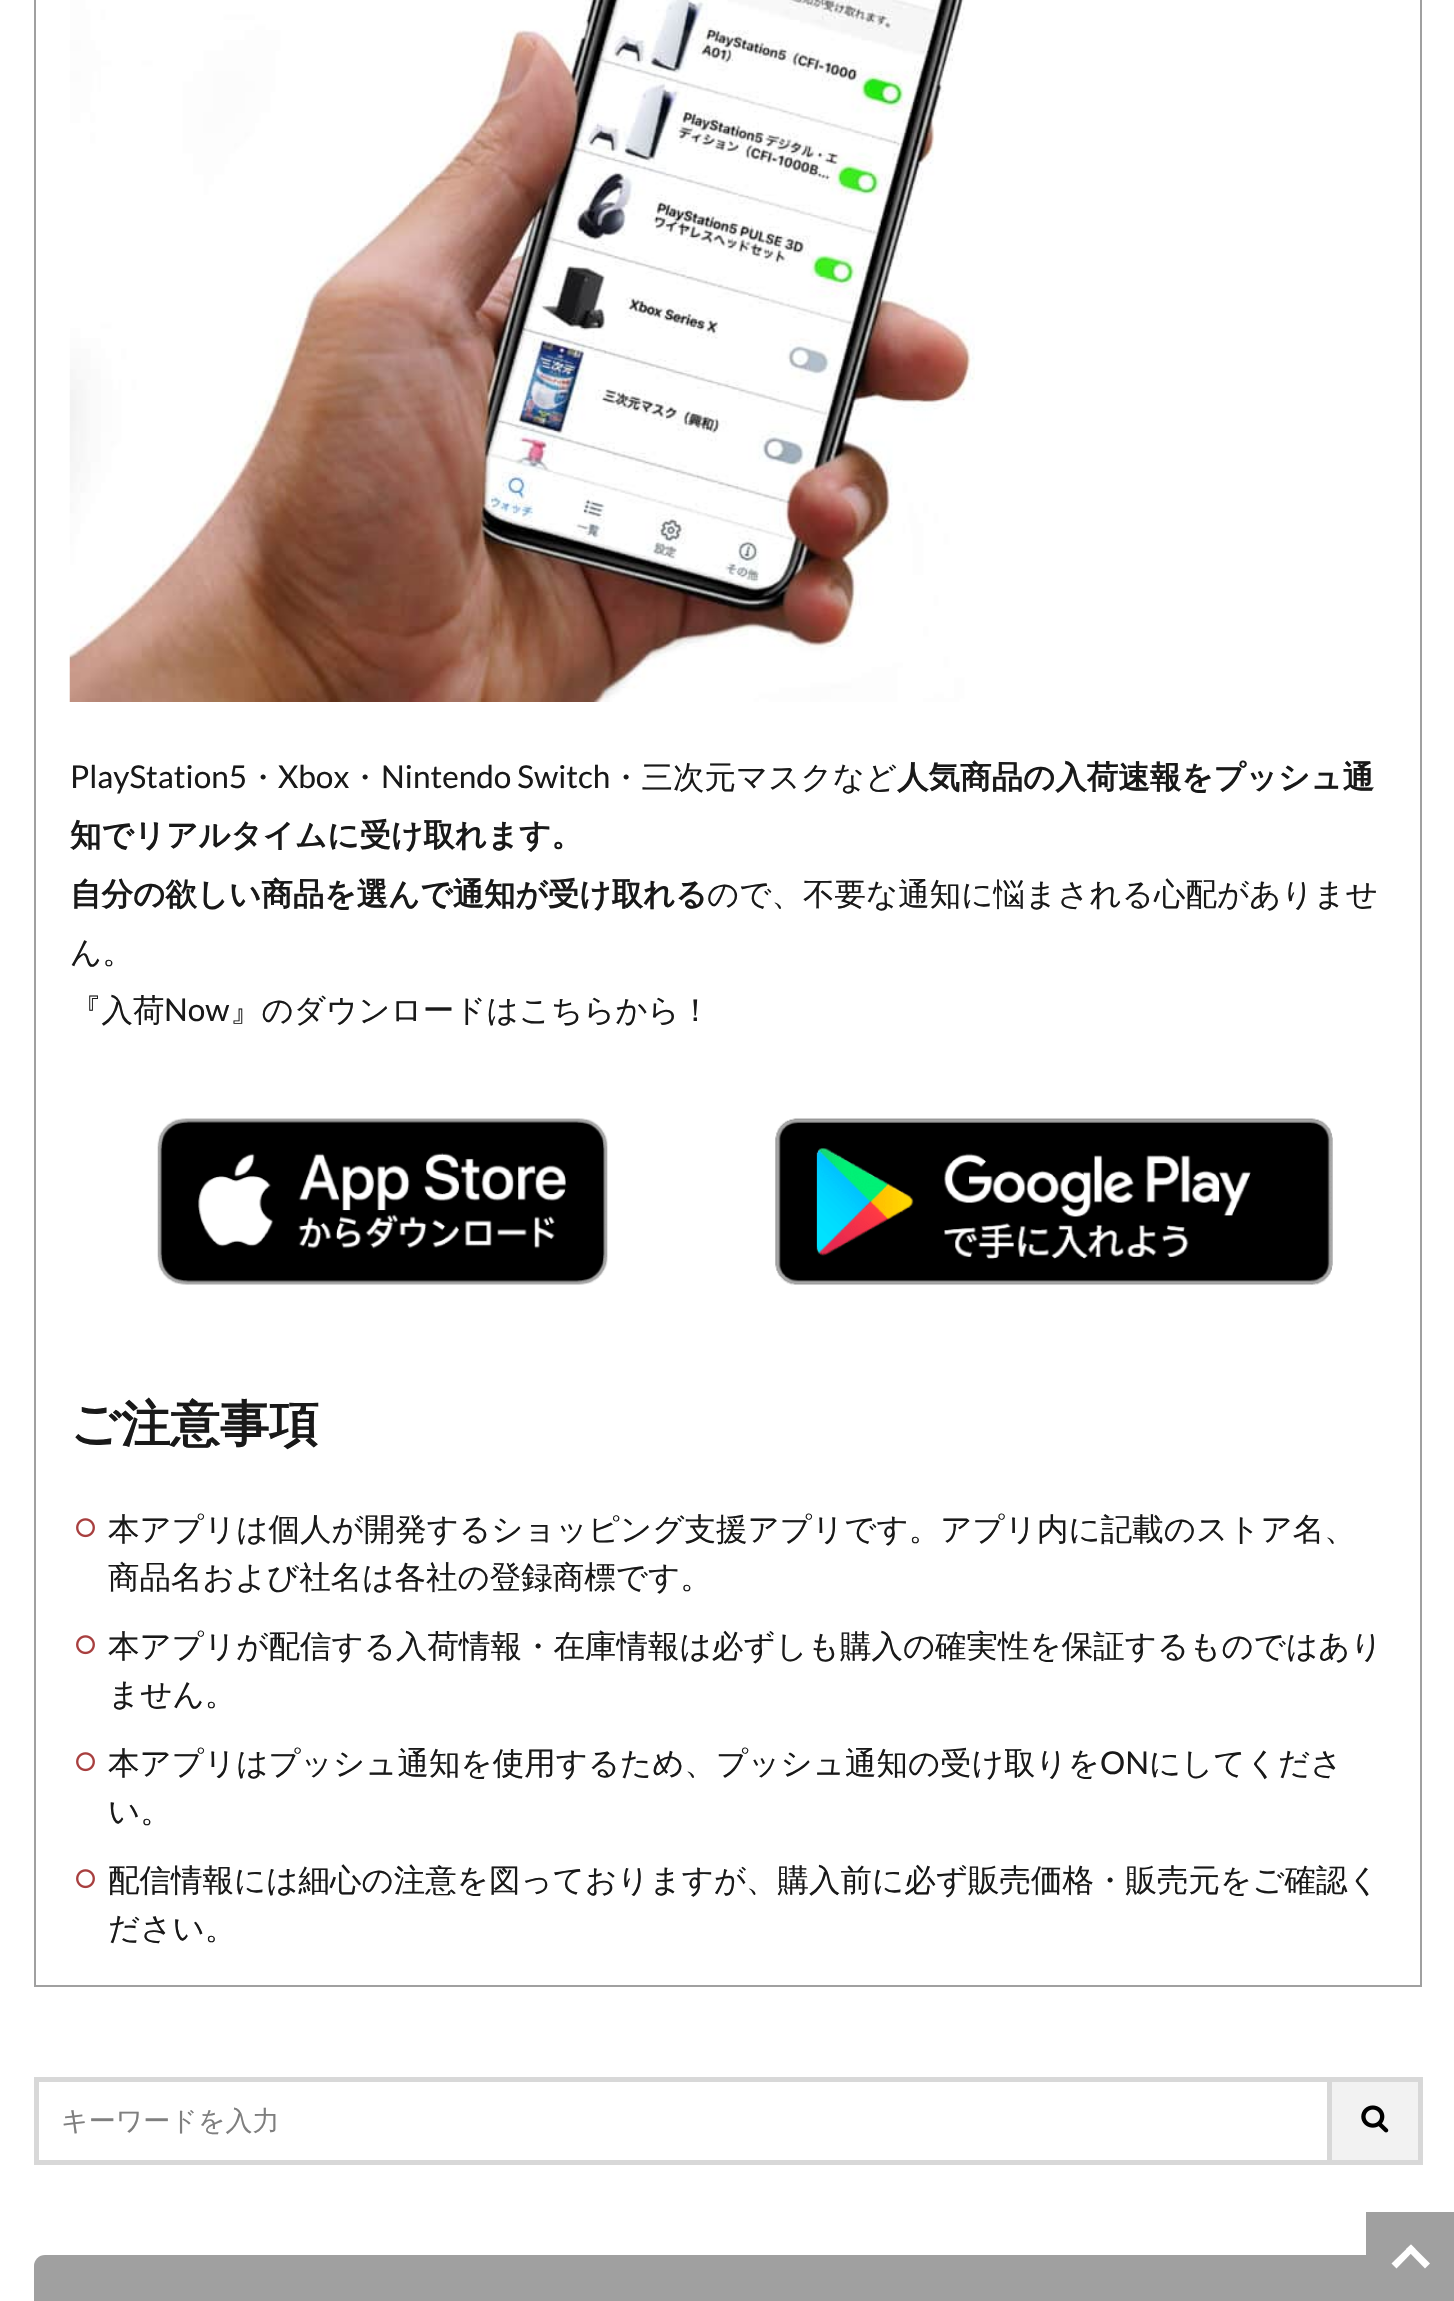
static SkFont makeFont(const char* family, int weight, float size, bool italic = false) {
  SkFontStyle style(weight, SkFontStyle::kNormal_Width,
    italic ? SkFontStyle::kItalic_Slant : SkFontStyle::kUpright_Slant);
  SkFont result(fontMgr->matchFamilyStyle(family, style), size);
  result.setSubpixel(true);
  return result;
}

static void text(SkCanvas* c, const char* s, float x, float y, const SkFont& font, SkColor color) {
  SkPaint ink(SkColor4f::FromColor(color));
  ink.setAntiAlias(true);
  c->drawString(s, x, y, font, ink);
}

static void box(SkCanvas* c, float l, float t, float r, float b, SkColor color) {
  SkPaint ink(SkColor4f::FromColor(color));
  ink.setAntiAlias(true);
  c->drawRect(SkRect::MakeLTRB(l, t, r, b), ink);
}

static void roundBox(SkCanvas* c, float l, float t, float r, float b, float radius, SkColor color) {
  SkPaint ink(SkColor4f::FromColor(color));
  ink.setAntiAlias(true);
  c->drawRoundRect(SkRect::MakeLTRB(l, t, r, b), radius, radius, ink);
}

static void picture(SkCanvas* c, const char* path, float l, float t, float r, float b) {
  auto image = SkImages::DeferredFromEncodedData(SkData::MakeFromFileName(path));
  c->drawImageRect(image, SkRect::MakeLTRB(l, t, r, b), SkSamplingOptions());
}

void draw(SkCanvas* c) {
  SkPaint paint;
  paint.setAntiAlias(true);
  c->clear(0xffffffff);
  paint.setStyle(SkPaint::kStroke_Style);
  paint.setStrokeWidth(2);
  paint.setColor(0xffa0a0a0);
  c->drawRect(SkRect::MakeLTRB(35, -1, 1421, 1986), paint);
  picture(c, "img_01.png", 69, 0, 975, 702);
  SkFont face1 = makeFont("Lato", 400, 31.5f);
  text(c, "PlayStation5", 70, 788, face1, 0xff191919);
  SkFont face2 = makeFont("WenQuanYi Zen Hei", 500, 31.5f);
  text(c, "・", 247, 788, face2, 0xff191919);
  text(c, "Xbox", 278, 788, face1, 0xff191919);
  text(c, "・", 349, 788, face2, 0xff191919);
  text(c, "Nintendo Switch", 381, 788, face1, 0xff191919);
  text(c, "・三次元マスクなど", 610, 788, face2, 0xff191919);
  SkFont face3 = makeFont("WenQuanYi Zen Hei", 700, 31.5f);
  text(c, "人気商品の入荷速報をプッシュ通", 897, 788, face3, 0xff191919);
  text(c, "知でリアルタイムに受け取れます。", 70, 846, face3, 0xff191919);
  text(c, "自分の欲しい商品を選んで通知が受け取れる", 70, 905, face3, 0xff191919);
  text(c, "ので、不要な通知に悩まされる心配がありませ", 707, 905, face2, 0xff191919);
  text(c, "ん。", 70, 963, face2, 0xff191919);
  text(c, "『入荷", 70, 1021, face2, 0xff191919);
  text(c, "Now", 164, 1021, face1, 0xff191919);
  text(c, "』のダウンロードはこちらから！", 230, 1021, face2, 0xff191919);
  picture(c, "img_02.png", 157, 1118, 608, 1285);
  picture(c, "img_03.png", 774, 1118, 1333, 1286);
  SkFont face4 = makeFont("WenQuanYi Zen Hei", 700, 49.5f);
  text(c, "ご注意事項", 70, 1441, face4, 0xff191919);
  picture(c, "img_04.png", 76, 1518, 95, 1538);
  text(c, "本アプリは個人が開発するショッピング支援アプリです。アプリ内に記載のストア名、", 108, 1540, face2, 0xff191919);
  text(c, "商品名および社名は各社の登録商標です。", 108, 1588, face2, 0xff191919);
  picture(c, "img_04.png", 76, 1635, 95, 1655);
  text(c, "本アプリが配信する入荷情報・在庫情報は必ずしも購入の確実性を保証するものではあり", 108, 1657, face2, 0xff191919);
  text(c, "ません。", 108, 1705, face2, 0xff191919);
  picture(c, "img_04.png", 76, 1752, 95, 1772);
  text(c, "本アプリはプッシュ通知を使用するため、プッシュ通知の受け取りを", 108, 1774, face2, 0xff191919);
  text(c, "ON", 1100, 1774, face1, 0xff191919);
  text(c, "にしてくださ", 1149, 1774, face2, 0xff191919);
  text(c, "い。", 108, 1822, face2, 0xff191919);
  picture(c, "img_04.png", 76, 1869, 95, 1889);
  text(c, "配信情報には細心の注意を図っておりますが、購入前に必ず販売価格・販売元をご確認く", 108, 1891, face2, 0xff191919);
  text(c, "ださい。", 108, 1939, face2, 0xff191919);
  paint.setStrokeWidth(5);
  paint.setColor(0xffd8d8d8);
  c->drawRect(SkRect::MakeLTRB(36.5f, 2079.5f, 1329.5f, 2162.5f), paint);
  SkFont face5 = makeFont("WenQuanYi Zen Hei", 500, 27);
  text(c, "キーワードを入力", 61, 2130, face5, 0xff7f7f7f);
  box(c, 1332, 2082, 1418, 2160, 0xfff2f2f2);
  box(c, 1332, 2077, 1422, 2082, 0xffd8d8d8);
  box(c, 1418, 2077, 1423, 2165, 0xffd8d8d8);
  box(c, 1332, 2160, 1422, 2165, 0xffd8d8d8);
  picture(c, "img_05.png", 1361, 2105, 1389, 2133);
  roundBox(c, 34, 2255, 1422, 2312, 11, 0xffa0a0a0);
  box(c, 1366, 2212, 1454, 2301, 0xffa0a0a0);
  paint.setStyle(SkPaint::kFill_Style);
  paint.setColor(0xffffffff);
  c->drawPath(SkPathBuilder().moveTo(1391.5f, 2263.5f).lineTo(1411, 2244.5f).lineTo(1415.5f, 2249).lineTo(1396.5f, 2268.5f).close().detach(), paint);
  c->drawPath(SkPathBuilder().moveTo(1406, 2249).lineTo(1411, 2244.5f).lineTo(1430, 2263.5f).lineTo(1425, 2268.5f).close().detach(), paint);
}
